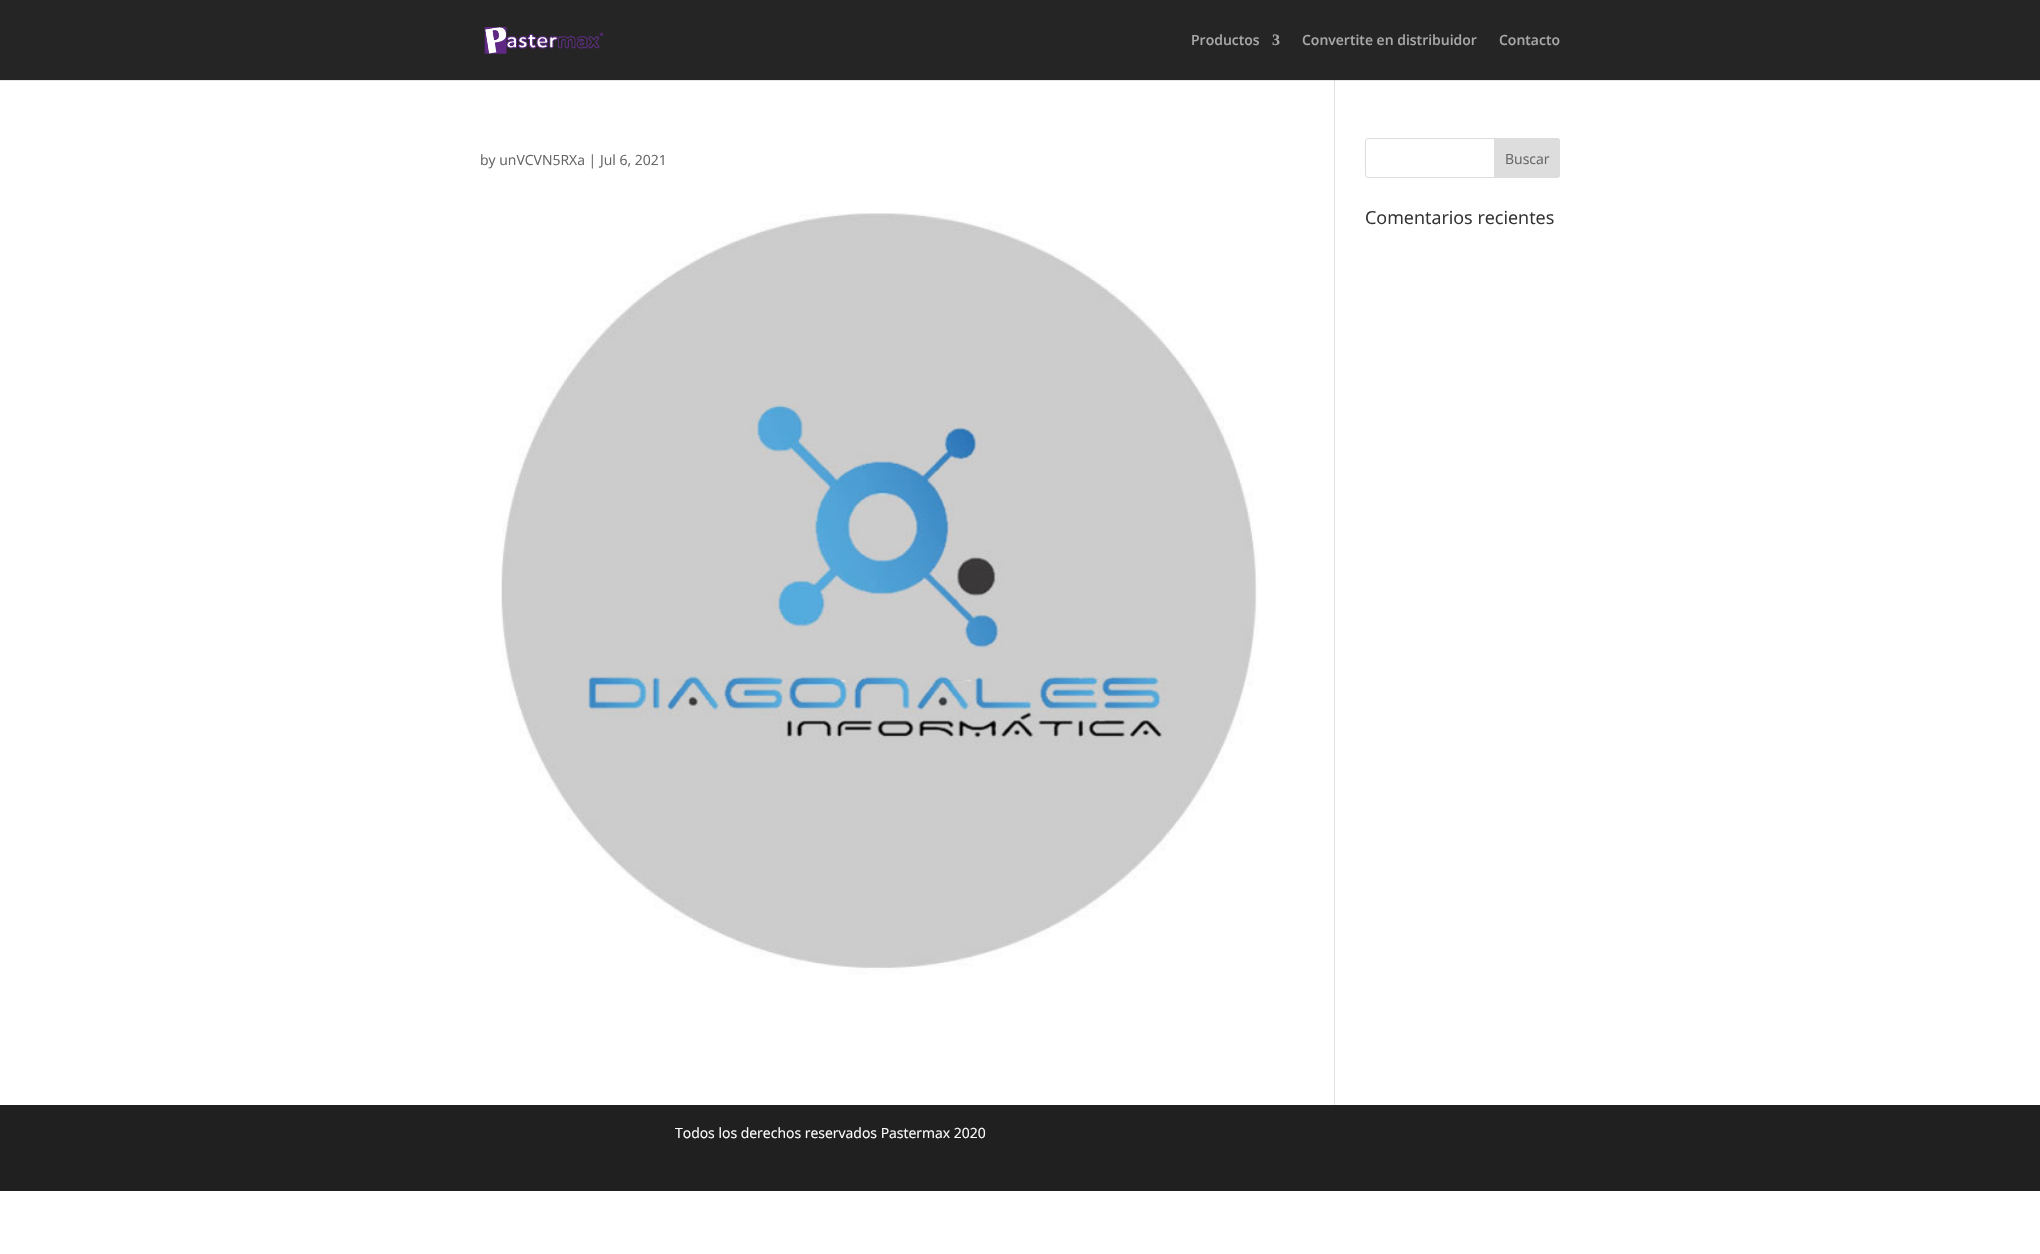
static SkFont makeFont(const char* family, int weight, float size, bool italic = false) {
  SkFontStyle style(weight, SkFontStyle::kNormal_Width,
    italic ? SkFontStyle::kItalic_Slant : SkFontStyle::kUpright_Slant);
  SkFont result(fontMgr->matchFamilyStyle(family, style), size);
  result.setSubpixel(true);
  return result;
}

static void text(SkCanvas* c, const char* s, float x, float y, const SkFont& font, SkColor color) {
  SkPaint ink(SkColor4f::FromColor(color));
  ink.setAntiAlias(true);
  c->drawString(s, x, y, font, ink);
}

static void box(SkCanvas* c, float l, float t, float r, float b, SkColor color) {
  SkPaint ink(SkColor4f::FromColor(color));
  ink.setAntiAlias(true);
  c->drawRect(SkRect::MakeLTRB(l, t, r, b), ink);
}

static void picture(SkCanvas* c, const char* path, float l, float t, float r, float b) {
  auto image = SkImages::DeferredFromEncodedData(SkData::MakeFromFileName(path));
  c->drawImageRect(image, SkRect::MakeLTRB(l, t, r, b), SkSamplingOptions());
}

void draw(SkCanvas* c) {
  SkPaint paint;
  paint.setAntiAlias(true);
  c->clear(0xffffffff);
  box(c, 0, 80, 2040, 81, 0xffe6e6e6);
  box(c, 0, 0, 2040, 80, 0xff252525);
  picture(c, "img_01.png", 484, 27, 604, 54);
  SkFont face1 = makeFont("Open Sans", 600, 14);
  text(c, "Productos", 1191, 45, face1, 0xffa8a8a8);
  SkFont face2 = makeFont("Liberation Serif", 700, 16);
  text(c, "3", 1272, 45, face2, 0xffa8a8a8);
  text(c, "Convertite en distribuidor", 1302, 45, face1, 0xffa8a8a8);
  text(c, "Contacto", 1499, 45, face1, 0xffa8a8a8);
  box(c, 1334, 80, 1335, 1105, 0xffe2e2e2);
  box(c, 1334, 80, 1335, 81, 0xffcbcbcb);
  SkFont face3 = makeFont("Open Sans", 400, 14);
  text(c, "by unVCVN5RXa | Jul 6, 2021", 480, 165, face3, 0xff666666);
  picture(c, "img_02.png", 501, 213, 1259, 974);
  paint.setStyle(SkPaint::kStroke_Style);
  paint.setStrokeWidth(1);
  paint.setColor(0xffdddddd);
  c->drawRoundRect(SkRect::MakeLTRB(1365.5f, 138.5f, 1559.5f, 177.5f), 2.5f, 2.5f, paint);
  paint.setStyle(SkPaint::kFill_Style);
  c->drawPath(SkPathBuilder().moveTo(1494.5f, 138.5f).lineTo(1557, 138.5f).cubicTo(1558.5f, 138.5f, 1559.5f, 139.5f, 1559.5f, 141).lineTo(1559.5f, 175).cubicTo(1559.5f, 176.5f, 1558.5f, 177.5f, 1557, 177.5f).lineTo(1494.5f, 177.5f).close().detach(), paint);
  paint.setStyle(SkPaint::kStroke_Style);
  c->drawPath(SkPathBuilder().moveTo(1494.5f, 138.5f).lineTo(1557, 138.5f).cubicTo(1558.5f, 138.5f, 1559.5f, 139.5f, 1559.5f, 141).lineTo(1559.5f, 175).cubicTo(1559.5f, 176.5f, 1558.5f, 177.5f, 1557, 177.5f).lineTo(1494.5f, 177.5f).close().detach(), paint);
  text(c, "Buscar", 1505, 164, face3, 0xff666666);
  SkFont face4 = makeFont("Open Sans", 400, 18);
  text(c, "Comentarios recientes", 1365, 224, face4, 0xff333333);
  box(c, 0, 1105, 2040, 1191, 0xff202020);
  text(c, "Todos los derechos reservados Pastermax 2020", 675, 1138, face3, 0xffffffff);
}
